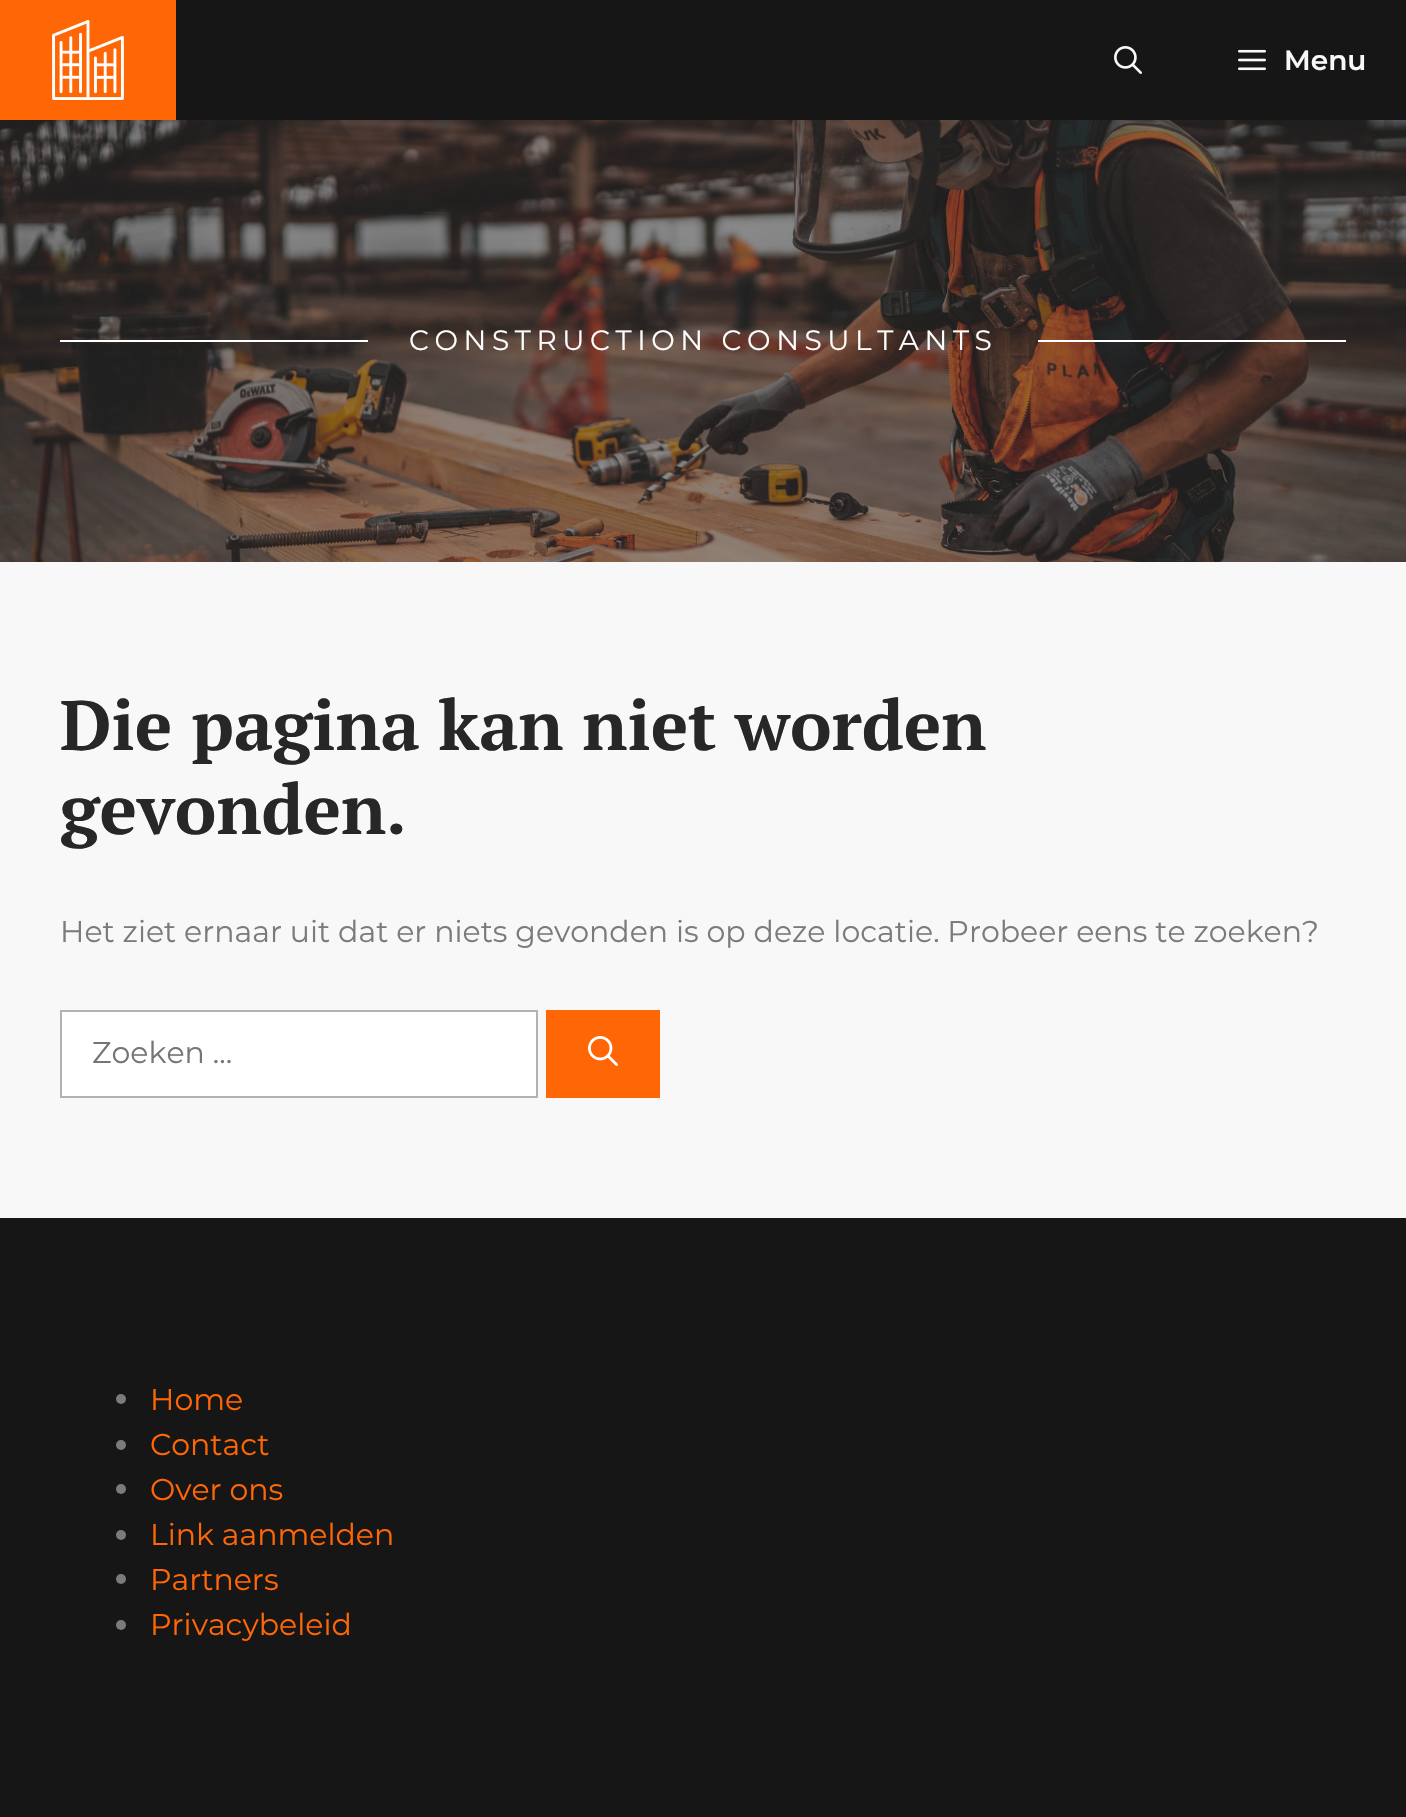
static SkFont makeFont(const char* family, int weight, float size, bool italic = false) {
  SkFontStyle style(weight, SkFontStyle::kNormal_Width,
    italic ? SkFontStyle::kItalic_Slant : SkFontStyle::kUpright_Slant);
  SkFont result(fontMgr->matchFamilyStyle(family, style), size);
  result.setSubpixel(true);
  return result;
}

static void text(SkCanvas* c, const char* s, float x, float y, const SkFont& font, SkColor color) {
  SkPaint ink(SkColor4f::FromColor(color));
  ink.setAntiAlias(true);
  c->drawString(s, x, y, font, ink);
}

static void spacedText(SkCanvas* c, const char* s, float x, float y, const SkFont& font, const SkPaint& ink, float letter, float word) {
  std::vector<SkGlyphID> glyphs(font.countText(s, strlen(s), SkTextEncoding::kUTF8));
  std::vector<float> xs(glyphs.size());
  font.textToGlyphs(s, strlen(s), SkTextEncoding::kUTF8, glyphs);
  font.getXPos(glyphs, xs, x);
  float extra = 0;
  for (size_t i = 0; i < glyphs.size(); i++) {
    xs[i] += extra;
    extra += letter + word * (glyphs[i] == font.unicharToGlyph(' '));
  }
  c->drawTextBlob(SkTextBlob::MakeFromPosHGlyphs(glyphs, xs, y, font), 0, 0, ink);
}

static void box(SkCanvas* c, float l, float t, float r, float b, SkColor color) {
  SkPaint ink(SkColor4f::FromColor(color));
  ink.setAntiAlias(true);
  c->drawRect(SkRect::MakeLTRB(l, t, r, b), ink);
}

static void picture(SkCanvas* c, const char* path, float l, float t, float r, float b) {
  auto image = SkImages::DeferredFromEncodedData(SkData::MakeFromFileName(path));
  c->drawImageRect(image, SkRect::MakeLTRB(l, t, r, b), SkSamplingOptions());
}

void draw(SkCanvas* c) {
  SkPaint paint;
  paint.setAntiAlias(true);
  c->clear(0xfff8f8f8);
  box(c, 176, 0, 1406, 120, 0xff161616);
  box(c, 0, 0, 176, 120, 0xffff6606);
  picture(c, "img_01.png", 52, 20, 124, 100);
  picture(c, "img_02.png", 1114, 46, 1142, 74);
  picture(c, "img_03.png", 1238, 49, 1266, 71);
  SkFont face1 = makeFont("Montserrat", 600, 28);
  text(c, "Menu", 1284, 70, face1, 0xfff8f8f8);
  box(c, 0, 120, 1406, 562, 0xff272727);
  picture(c, "img_04.png", 0, 120, 1406, 562);
  box(c, 60, 340, 368, 342, 0xffffffff);
  SkFont face2 = makeFont("Montserrat", 400, 28);
  paint.setColor(0xffffffff);
  spacedText(c, "CONSTRUCTION CONSULTANTS", 409, 350, face2, paint, 5.6f, 0);
  box(c, 1038, 340, 1346, 342, 0xffffffff);
  SkFont face3 = makeFont("PT Serif", 700, 70);
  text(c, "Die pagina kan niet worden", 60, 750, face3, 0xff272727);
  text(c, "gevonden.", 60, 834, face3, 0xff272727);
  SkFont face4 = makeFont("Montserrat", 400, 30);
  text(c, "Het ziet ernaar uit dat er niets gevonden is op deze locatie. Probeer eens te zoeken?", 60, 942, face4, 0xff7b7b7b);
  c->drawRect(SkRect::MakeLTRB(61, 1011, 537, 1097), paint);
  paint.setStyle(SkPaint::kStroke_Style);
  paint.setStrokeWidth(2);
  paint.setColor(0xffb2b2b2);
  c->drawRect(SkRect::MakeLTRB(61, 1011, 537, 1097), paint);
  text(c, "Zoeken …", 92, 1063, face4, 0xff757575);
  box(c, 546, 1010, 660, 1098, 0xffff6606);
  picture(c, "img_05.png", 588, 1036, 618, 1066);
  box(c, 0, 1218, 1406, 1817, 0xff161616);
  paint.setStyle(SkPaint::kFill_Style);
  paint.setColor(0xff7b7b7b);
  c->drawCircle(121, 1399, 5, paint);
  text(c, "Home", 150, 1410, face4, 0xffff6606);
  c->drawCircle(121, 1445, 5, paint);
  text(c, "Contact", 150, 1455, face4, 0xffff6606);
  c->drawCircle(121, 1489, 5, paint);
  text(c, "Over ons", 150, 1500, face4, 0xffff6606);
  c->drawCircle(121, 1535, 5, paint);
  text(c, "Link aanmelden", 150, 1545, face4, 0xffff6606);
  c->drawCircle(121, 1579, 5, paint);
  text(c, "Partners", 150, 1590, face4, 0xffff6606);
  c->drawCircle(121, 1625, 5, paint);
  text(c, "Privacybeleid", 150, 1635, face4, 0xffff6606);
}
